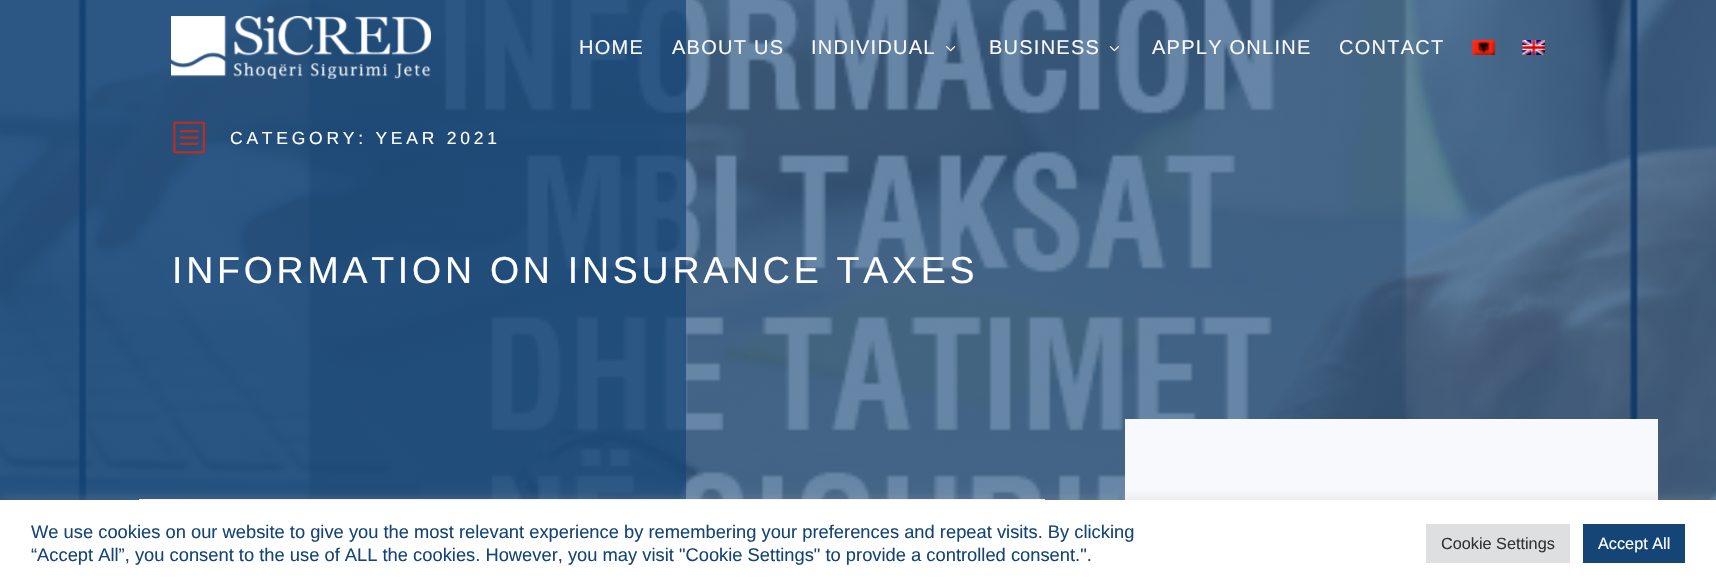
static SkFont makeFont(const char* family, int weight, float size, bool italic = false) {
  SkFontStyle style(weight, SkFontStyle::kNormal_Width,
    italic ? SkFontStyle::kItalic_Slant : SkFontStyle::kUpright_Slant);
  SkFont result(fontMgr->matchFamilyStyle(family, style), size);
  result.setSubpixel(true);
  return result;
}

static void text(SkCanvas* c, const char* s, float x, float y, const SkFont& font, SkColor color) {
  SkPaint ink(SkColor4f::FromColor(color));
  ink.setAntiAlias(true);
  c->drawString(s, x, y, font, ink);
}

static void spacedText(SkCanvas* c, const char* s, float x, float y, const SkFont& font, const SkPaint& ink, float letter, float word) {
  std::vector<SkGlyphID> glyphs(font.countText(s, strlen(s), SkTextEncoding::kUTF8));
  std::vector<float> xs(glyphs.size());
  font.textToGlyphs(s, strlen(s), SkTextEncoding::kUTF8, glyphs);
  font.getXPos(glyphs, xs, x);
  float extra = 0;
  for (size_t i = 0; i < glyphs.size(); i++) {
    xs[i] += extra;
    extra += letter + word * (glyphs[i] == font.unicharToGlyph(' '));
  }
  c->drawTextBlob(SkTextBlob::MakeFromPosHGlyphs(glyphs, xs, y, font), 0, 0, ink);
}

static void box(SkCanvas* c, float l, float t, float r, float b, SkColor color) {
  SkPaint ink(SkColor4f::FromColor(color));
  ink.setAntiAlias(true);
  c->drawRect(SkRect::MakeLTRB(l, t, r, b), ink);
}

static void picture(SkCanvas* c, const char* path, float l, float t, float r, float b) {
  auto image = SkImages::DeferredFromEncodedData(SkData::MakeFromFileName(path));
  c->drawImageRect(image, SkRect::MakeLTRB(l, t, r, b), SkSamplingOptions());
}

void draw(SkCanvas* c) {
  SkPaint paint;
  paint.setAntiAlias(true);
  c->clear(0xffffffff);
  picture(c, "img_06.png", 0, 0, 1716, 500);
  picture(c, "img_01.png", 171, 16, 431, 79);
  SkFont face1 = makeFont("Liberation Sans", 400, 20);
  paint.setColor(0xfff7f9fc);
  spacedText(c, "HOME", 579, 54, face1, paint, 1.25f, 0);
  spacedText(c, "ABOUT US", 672, 54, face1, paint, 1.25f, 0);
  spacedText(c, "INDIVIDUAL", 811, 54, face1, paint, 1.25f, 0);
  picture(c, "img_02.png", 946, 46, 956, 52);
  spacedText(c, "BUSINESS", 989, 54, face1, paint, 1.25f, 0);
  picture(c, "img_03.png", 1109, 46, 1119, 52);
  spacedText(c, "APPLY ONLINE", 1152, 54, face1, paint, 1.25f, 0);
  spacedText(c, "CONTACT", 1339, 54, face1, paint, 1.25f, 0);
  picture(c, "img_04.png", 1472, 40, 1496, 55);
  picture(c, "img_05.png", 1522, 40, 1545, 55);
  picture(c, "img_07.png", 173, 121, 205, 154);
  SkFont face2 = makeFont("Liberation Sans", 400, 17.5f);
  paint.setColor(0xffffffff);
  spacedText(c, "CATEGORY: YEAR 2021", 230, 144, face2, paint, 3.75f, 0);
  SkFont face3 = makeFont("Liberation Sans", 400, 37.5f);
  spacedText(c, "INFORMATION ON INSURANCE TAXES", 172, 283, face3, paint, 3.75f, 0);
  box(c, 139, 499, 1045, 500, 0xffffffff);
  box(c, 1125, 419, 1658, 500, 0xfff7f9fc);
  paint.setColor(0x4dacabab);
  paint.setMaskFilter(SkMaskFilter::MakeBlur(kNormal_SkBlurStyle, 6));
  c->drawRect(SkRect::MakeLTRB(0, 499, 1716, 585), paint);
  paint.setMaskFilter(nullptr);
  box(c, 0, 500, 1716, 586, 0xffffffff);
  SkFont face4 = makeFont("Liberation Sans", 400, 18.33f);
  text(c, "We use cookies on our website to give you the most relevant experience by remembering your preferences and repeat visits. By clicking", 31, 538, face4, 0xff154577);
  text(c, "“Accept All”, you consent to the use of ALL the cookies. However, you may visit \"Cookie Settings\" to provide a controlled consent.\".", 31, 561, face4, 0xff154577);
  box(c, 1426, 524, 1570, 563, 0xffdedfe0);
  SkFont face5 = makeFont("Liberation Sans", 400, 16.25f);
  text(c, "Cookie Settings", 1441, 549, face5, 0xff333333);
  box(c, 1583, 524, 1685, 563, 0xff154577);
  text(c, "Accept All", 1598, 549, face5, 0xffffffff);
}
